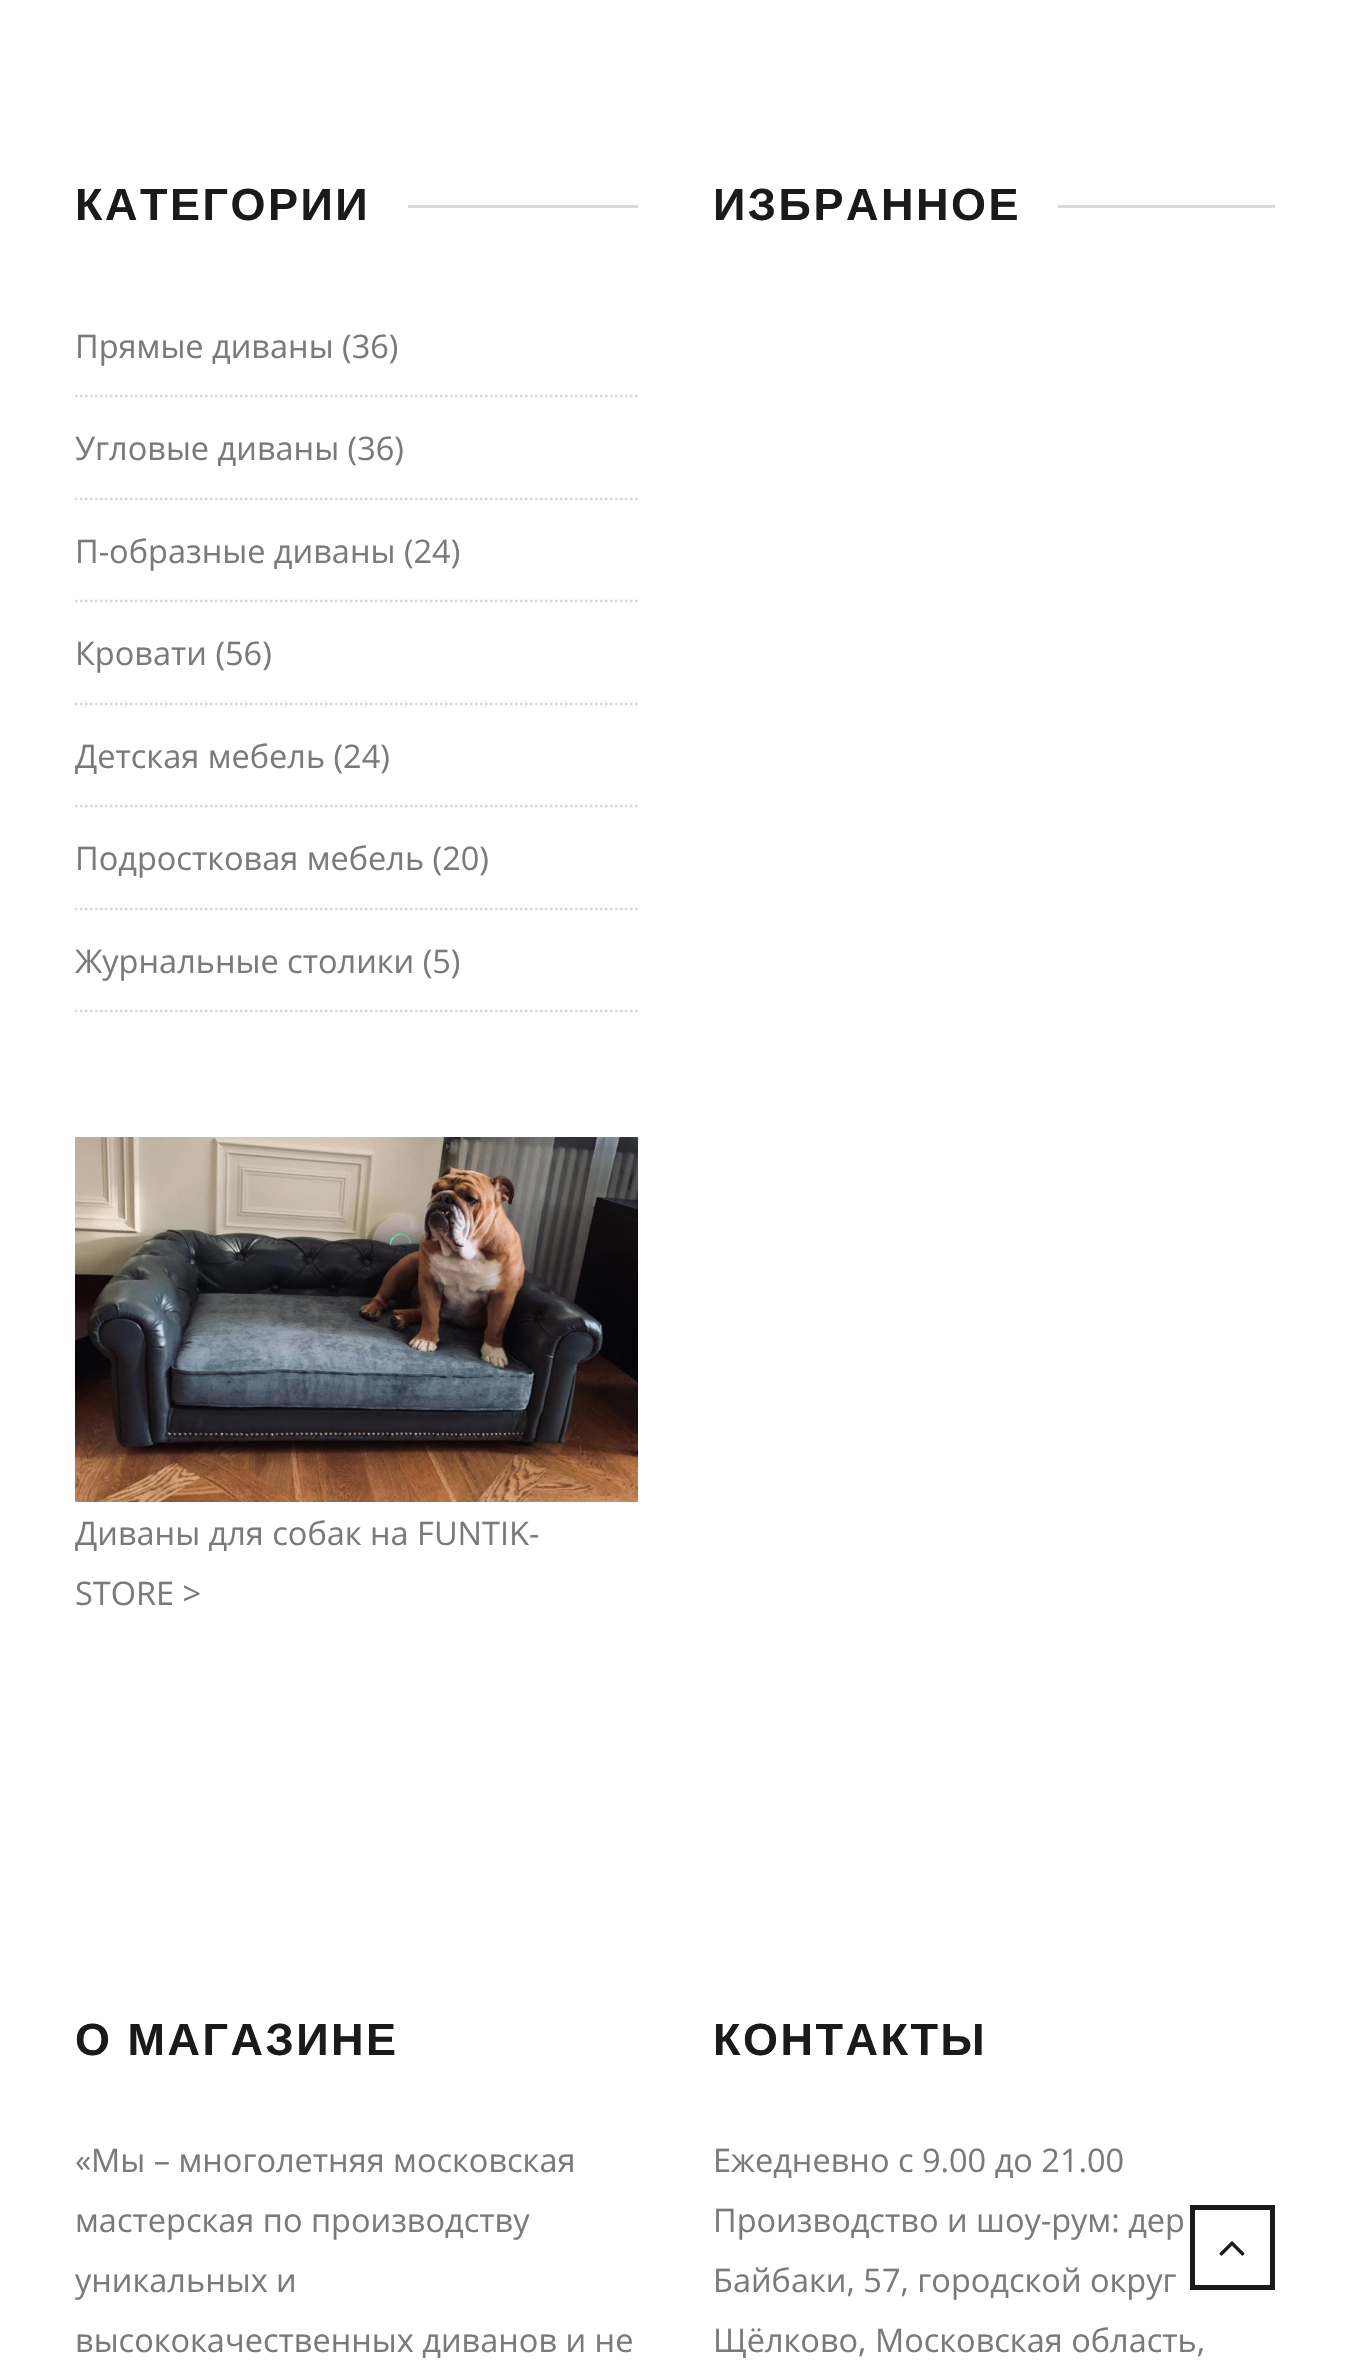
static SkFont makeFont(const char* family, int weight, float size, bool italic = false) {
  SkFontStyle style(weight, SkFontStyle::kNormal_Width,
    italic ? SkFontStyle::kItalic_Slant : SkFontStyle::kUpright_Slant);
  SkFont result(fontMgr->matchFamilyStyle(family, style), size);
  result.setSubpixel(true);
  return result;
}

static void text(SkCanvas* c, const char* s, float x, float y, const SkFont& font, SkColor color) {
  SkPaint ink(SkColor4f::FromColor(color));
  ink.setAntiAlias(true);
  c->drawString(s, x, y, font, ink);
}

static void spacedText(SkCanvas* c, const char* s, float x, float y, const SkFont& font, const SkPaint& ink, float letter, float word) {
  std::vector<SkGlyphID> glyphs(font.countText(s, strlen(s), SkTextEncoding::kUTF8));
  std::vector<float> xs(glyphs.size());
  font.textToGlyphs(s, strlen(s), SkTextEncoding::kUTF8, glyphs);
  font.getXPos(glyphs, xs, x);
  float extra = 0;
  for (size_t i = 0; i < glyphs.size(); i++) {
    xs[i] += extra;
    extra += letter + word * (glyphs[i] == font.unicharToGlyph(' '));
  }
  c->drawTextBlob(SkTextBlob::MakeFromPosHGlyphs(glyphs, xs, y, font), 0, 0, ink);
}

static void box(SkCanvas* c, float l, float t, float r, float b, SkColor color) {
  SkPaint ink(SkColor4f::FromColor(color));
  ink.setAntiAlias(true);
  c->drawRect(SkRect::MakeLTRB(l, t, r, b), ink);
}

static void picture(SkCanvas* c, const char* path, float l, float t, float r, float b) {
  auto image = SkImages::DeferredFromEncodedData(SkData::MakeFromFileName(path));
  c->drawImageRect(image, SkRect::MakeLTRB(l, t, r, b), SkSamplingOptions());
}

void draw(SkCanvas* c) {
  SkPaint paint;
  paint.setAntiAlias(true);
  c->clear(0xffffffff);
  SkFont face1 = makeFont("Arimo", 700, 45);
  paint.setColor(0xff1a1a1a);
  spacedText(c, "КАТЕГОРИИ", 75, 220, face1, paint, 2.5f, 0);
  box(c, 408, 205, 638, 208, 0xffd8d8d8);
  paint.setStyle(SkPaint::kStroke_Style);
  paint.setStrokeWidth(2.5f);
  paint.setColor(0xffd8d8d8);
  paint.setPathEffect(SkDashPathEffect::Make({{2.5f, 2.5f}}, 0));
  c->drawPath(SkPathBuilder().moveTo(75, 396).lineTo(637.5f, 396).detach(), paint);
  paint.setPathEffect(nullptr);
  SkFont face2 = makeFont("Open Sans", 400, 32.5f);
  text(c, "Прямые диваны (36)", 75, 358, face2, 0xff7a7a7a);
  paint.setPathEffect(SkDashPathEffect::Make({{2.5f, 2.5f}}, 0));
  c->drawPath(SkPathBuilder().moveTo(75, 499).lineTo(637.5f, 499).detach(), paint);
  paint.setPathEffect(nullptr);
  text(c, "Угловые диваны (36)", 75, 460, face2, 0xff7a7a7a);
  paint.setPathEffect(SkDashPathEffect::Make({{2.5f, 2.5f}}, 0));
  c->drawPath(SkPathBuilder().moveTo(75, 601).lineTo(637.5f, 601).detach(), paint);
  paint.setPathEffect(nullptr);
  text(c, "П-образные диваны (24)", 75, 563, face2, 0xff7a7a7a);
  paint.setPathEffect(SkDashPathEffect::Make({{2.5f, 2.5f}}, 0));
  c->drawPath(SkPathBuilder().moveTo(75, 704).lineTo(637.5f, 704).detach(), paint);
  paint.setPathEffect(nullptr);
  text(c, "Кровати (56)", 75, 665, face2, 0xff7a7a7a);
  paint.setPathEffect(SkDashPathEffect::Make({{2.5f, 2.5f}}, 0));
  c->drawPath(SkPathBuilder().moveTo(75, 806).lineTo(637.5f, 806).detach(), paint);
  paint.setPathEffect(nullptr);
  text(c, "Детская мебель (24)", 75, 768, face2, 0xff7a7a7a);
  paint.setPathEffect(SkDashPathEffect::Make({{2.5f, 2.5f}}, 0));
  c->drawPath(SkPathBuilder().moveTo(75, 909).lineTo(637.5f, 909).detach(), paint);
  paint.setPathEffect(nullptr);
  text(c, "Подростковая мебель (20)", 75, 870, face2, 0xff7a7a7a);
  paint.setPathEffect(SkDashPathEffect::Make({{2.5f, 2.5f}}, 0));
  c->drawPath(SkPathBuilder().moveTo(75, 1011).lineTo(637.5f, 1011).detach(), paint);
  paint.setPathEffect(nullptr);
  text(c, "Журнальные столики (5)", 75, 973, face2, 0xff7a7a7a);
  paint.setStyle(SkPaint::kFill_Style);
  paint.setColor(0xff1a1a1a);
  spacedText(c, "ИЗБРАННОЕ", 713, 220, face1, paint, 2.5f, 0);
  box(c, 1058, 205, 1275, 208, 0xffd8d8d8);
  picture(c, "img_01.png", 75, 1137, 638, 1502);
  text(c, "Диваны для собак на FUNTIK-", 75, 1545, face2, 0xff7a7a7a);
  text(c, "STORE >", 75, 1605, face2, 0xff7a7a7a);
  spacedText(c, "О МАГАЗИНЕ", 75, 2055, face1, paint, 2.5f, 0);
  text(c, "«Мы – многолетняя московская", 75, 2172, face2, 0xff7a7a7a);
  text(c, "мастерская по производству", 75, 2232, face2, 0xff7a7a7a);
  text(c, "уникальных и", 75, 2292, face2, 0xff7a7a7a);
  text(c, "высококачественных диванов и не", 75, 2352, face2, 0xff7a7a7a);
  spacedText(c, "КОНТАКТЫ", 713, 2055, face1, paint, 2.5f, 0);
  text(c, "Ежедневно с 9.00 до 21.00", 713, 2172, face2, 0xff7a7a7a);
  text(c, "Производство и шоу-рум: дер", 713, 2232, face2, 0xff7a7a7a);
  text(c, "Байбаки, 57, городской округ", 713, 2292, face2, 0xff7a7a7a);
  text(c, "Щёлково, Московская область,", 713, 2352, face2, 0xff7a7a7a);
  paint.setStyle(SkPaint::kStroke_Style);
  paint.setStrokeWidth(5);
  c->drawRect(SkRect::MakeLTRB(1192.5f, 2207.5f, 1272.5f, 2287.5f), paint);
  picture(c, "img_02.png", 1219, 2241, 1245, 2256);
}
